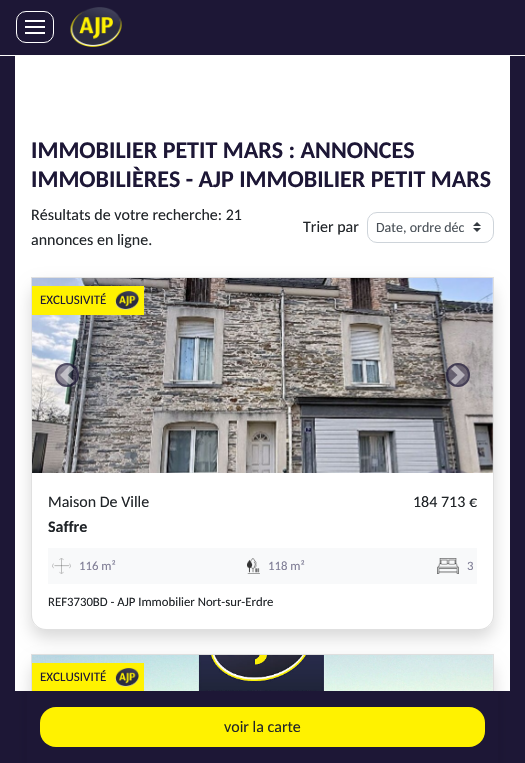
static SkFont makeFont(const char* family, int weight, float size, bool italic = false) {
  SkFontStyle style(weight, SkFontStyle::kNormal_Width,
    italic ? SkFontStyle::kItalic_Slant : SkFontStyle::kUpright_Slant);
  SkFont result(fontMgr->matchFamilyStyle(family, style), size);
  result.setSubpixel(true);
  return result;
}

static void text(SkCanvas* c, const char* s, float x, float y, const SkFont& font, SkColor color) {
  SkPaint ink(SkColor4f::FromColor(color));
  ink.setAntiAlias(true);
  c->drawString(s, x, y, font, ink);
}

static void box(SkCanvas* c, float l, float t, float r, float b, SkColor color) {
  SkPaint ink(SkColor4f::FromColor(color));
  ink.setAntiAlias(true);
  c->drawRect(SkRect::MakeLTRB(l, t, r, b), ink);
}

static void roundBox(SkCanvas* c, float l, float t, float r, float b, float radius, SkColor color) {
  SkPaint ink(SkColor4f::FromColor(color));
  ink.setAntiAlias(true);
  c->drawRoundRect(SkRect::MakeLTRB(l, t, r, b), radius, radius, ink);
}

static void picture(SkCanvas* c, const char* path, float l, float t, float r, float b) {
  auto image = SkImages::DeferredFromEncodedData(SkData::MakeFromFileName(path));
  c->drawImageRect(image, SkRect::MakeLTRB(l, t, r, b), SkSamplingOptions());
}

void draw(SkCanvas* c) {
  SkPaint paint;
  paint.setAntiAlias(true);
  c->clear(0xff1d1736);
  box(c, 0, 55, 525, 56, 0xfffefefe);
  paint.setStyle(SkPaint::kStroke_Style);
  paint.setStrokeWidth(1);
  paint.setColor(0xffffffff);
  c->drawRoundRect(SkRect::MakeLTRB(16.5f, 11.5f, 53.5f, 42.5f), 9.5f, 9.5f, paint);
  box(c, 25, 20, 45, 22, 0xffffffff);
  box(c, 25, 26, 45, 28, 0xffffffff);
  box(c, 25, 32, 45, 34, 0xffffffff);
  picture(c, "img_01.png", 70, 7, 122, 47);
  box(c, 15, 56, 510, 691, 0xffffffff);
  SkFont face1 = makeFont("Carlito", 700, 24);
  text(c, "IMMOBILIER PETIT MARS : ANNONCES", 31, 158, face1, 0xff1d1736);
  text(c, "IMMOBILIÈRES - AJP IMMOBILIER PETIT MARS", 31, 187, face1, 0xff1d1736);
  SkFont face2 = makeFont("Carlito", 400, 16);
  text(c, "Résultats de votre recherche: 21", 31, 220, face2, 0xff212529);
  text(c, "annonces en ligne.", 31, 245, face2, 0xff212529);
  text(c, "Trier par", 303, 232, face2, 0xff212529);
  picture(c, "img_02.png", 473, 222, 481, 232);
  paint.setColor(0xffced4da);
  c->drawRoundRect(SkRect::MakeLTRB(367.5f, 212.5f, 493.5f, 242.5f), 9.5f, 9.5f, paint);
  SkFont face3 = makeFont("Carlito", 400, 14);
  text(c, "Date, ordre déc", 376, 232, face3, 0xff495057);
  paint.setStyle(SkPaint::kFill_Style);
  paint.setColor(0x26000000);
  paint.setMaskFilter(SkMaskFilter::MakeBlur(kNormal_SkBlurStyle, 8));
  c->drawRoundRect(SkRect::MakeLTRB(31, 285, 494, 638), 15, 15, paint);
  paint.setMaskFilter(nullptr);
  paint.setColor(0xffffffff);
  c->drawPath(SkPathBuilder().moveTo(31, 277).lineTo(494, 277).lineTo(494, 615).cubicTo(494, 623.5f, 487.5f, 630, 479, 630).lineTo(46, 630).cubicTo(37.5f, 630, 31, 623.5f, 31, 615).close().detach(), paint);
  paint.setStyle(SkPaint::kStroke_Style);
  paint.setColor(0x1f000000);
  c->drawPath(SkPathBuilder().moveTo(31.5f, 277.5f).lineTo(493.5f, 277.5f).lineTo(493.5f, 615).cubicTo(493.5f, 623, 487, 629.5f, 479, 629.5f).lineTo(46, 629.5f).cubicTo(38, 629.5f, 31.5f, 623, 31.5f, 615).close().detach(), paint);
  picture(c, "img_03.png", 32, 278, 493, 473);
  paint.setStyle(SkPaint::kFill_Style);
  paint.setColor(0x801d1736);
  c->drawCircle(67, 375, 12, paint);
  paint.setColor(0x80ffffff);
  c->drawPath(SkPathBuilder().moveTo(70, 365).lineTo(60, 375).lineTo(70, 385).lineTo(74, 381).lineTo(67.5f, 375).lineTo(74, 369).close().detach(), paint);
  paint.setStyle(SkPaint::kStroke_Style);
  paint.setStrokeWidth(2);
  paint.setColor(0x801d1736);
  c->drawCircle(67, 375, 11, paint);
  paint.setStyle(SkPaint::kFill_Style);
  c->drawCircle(458, 375, 12, paint);
  paint.setColor(0x80ffffff);
  c->drawPath(SkPathBuilder().moveTo(455, 365).lineTo(451, 369).lineTo(457.5f, 375).lineTo(451, 381).lineTo(455, 385).lineTo(465, 375).close().detach(), paint);
  paint.setStyle(SkPaint::kStroke_Style);
  paint.setColor(0x801d1736);
  c->drawCircle(458, 375, 11, paint);
  box(c, 32, 286, 144, 315, 0xfffff200);
  picture(c, "img_04.png", 115, 291, 139, 310);
  SkFont face4 = makeFont("Carlito", 400, 13);
  text(c, "EXCLUSIVITÉ", 40, 304, face4, 0xff1d1736);
  text(c, "Maison De Ville", 48, 507, face2, 0xff212529);
  text(c, "184 713 €", 413, 507, face2, 0xff212529);
  SkFont face5 = makeFont("Carlito", 700, 16);
  text(c, "Saffre", 48, 532, face5, 0xff212529);
  box(c, 48, 548, 477, 584, 0xfff8f9fa);
  picture(c, "img_05.png", 52, 558, 71, 574);
  SkFont face6 = makeFont("Carlito", 400, 12.75f);
  text(c, "116 m²", 79, 570, face6, 0xff807e96);
  picture(c, "img_06.png", 247, 558, 260, 574);
  text(c, "118 m²", 268, 570, face6, 0xff807e96);
  picture(c, "img_07.png", 437, 558, 459, 574);
  text(c, "3", 467, 570, face6, 0xff807e96);
  text(c, "REF3730BD - AJP Immobilier Nort-sur-Erdre", 48, 606, face6, 0xff212529);
  paint.setStyle(SkPaint::kFill_Style);
  paint.setColor(0x26000000);
  paint.setMaskFilter(SkMaskFilter::MakeBlur(kNormal_SkBlurStyle, 8));
  c->drawRoundRect(SkRect::MakeLTRB(31, 662, 494, 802), 15, 15, paint);
  paint.setMaskFilter(nullptr);
  paint.setStyle(SkPaint::kStroke_Style);
  paint.setStrokeWidth(1);
  paint.setColor(0xffdfdfdf);
  c->drawRect(SkRect::MakeLTRB(31.5f, 654.5f, 493.5f, 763.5f), paint);
  picture(c, "img_08.png", 32, 655, 493, 691);
  box(c, 32, 663, 144, 691, 0xfffff200);
  picture(c, "img_04.png", 115, 668, 139, 687);
  text(c, "EXCLUSIVITÉ", 40, 681, face4, 0xff1d1736);
  box(c, 27, 691, 498, 763, 0xff1d1736);
  roundBox(c, 40, 707, 485, 747, 16, 0xfffff200);
  text(c, "voir la carte", 224, 732, face2, 0xff212529);
}
